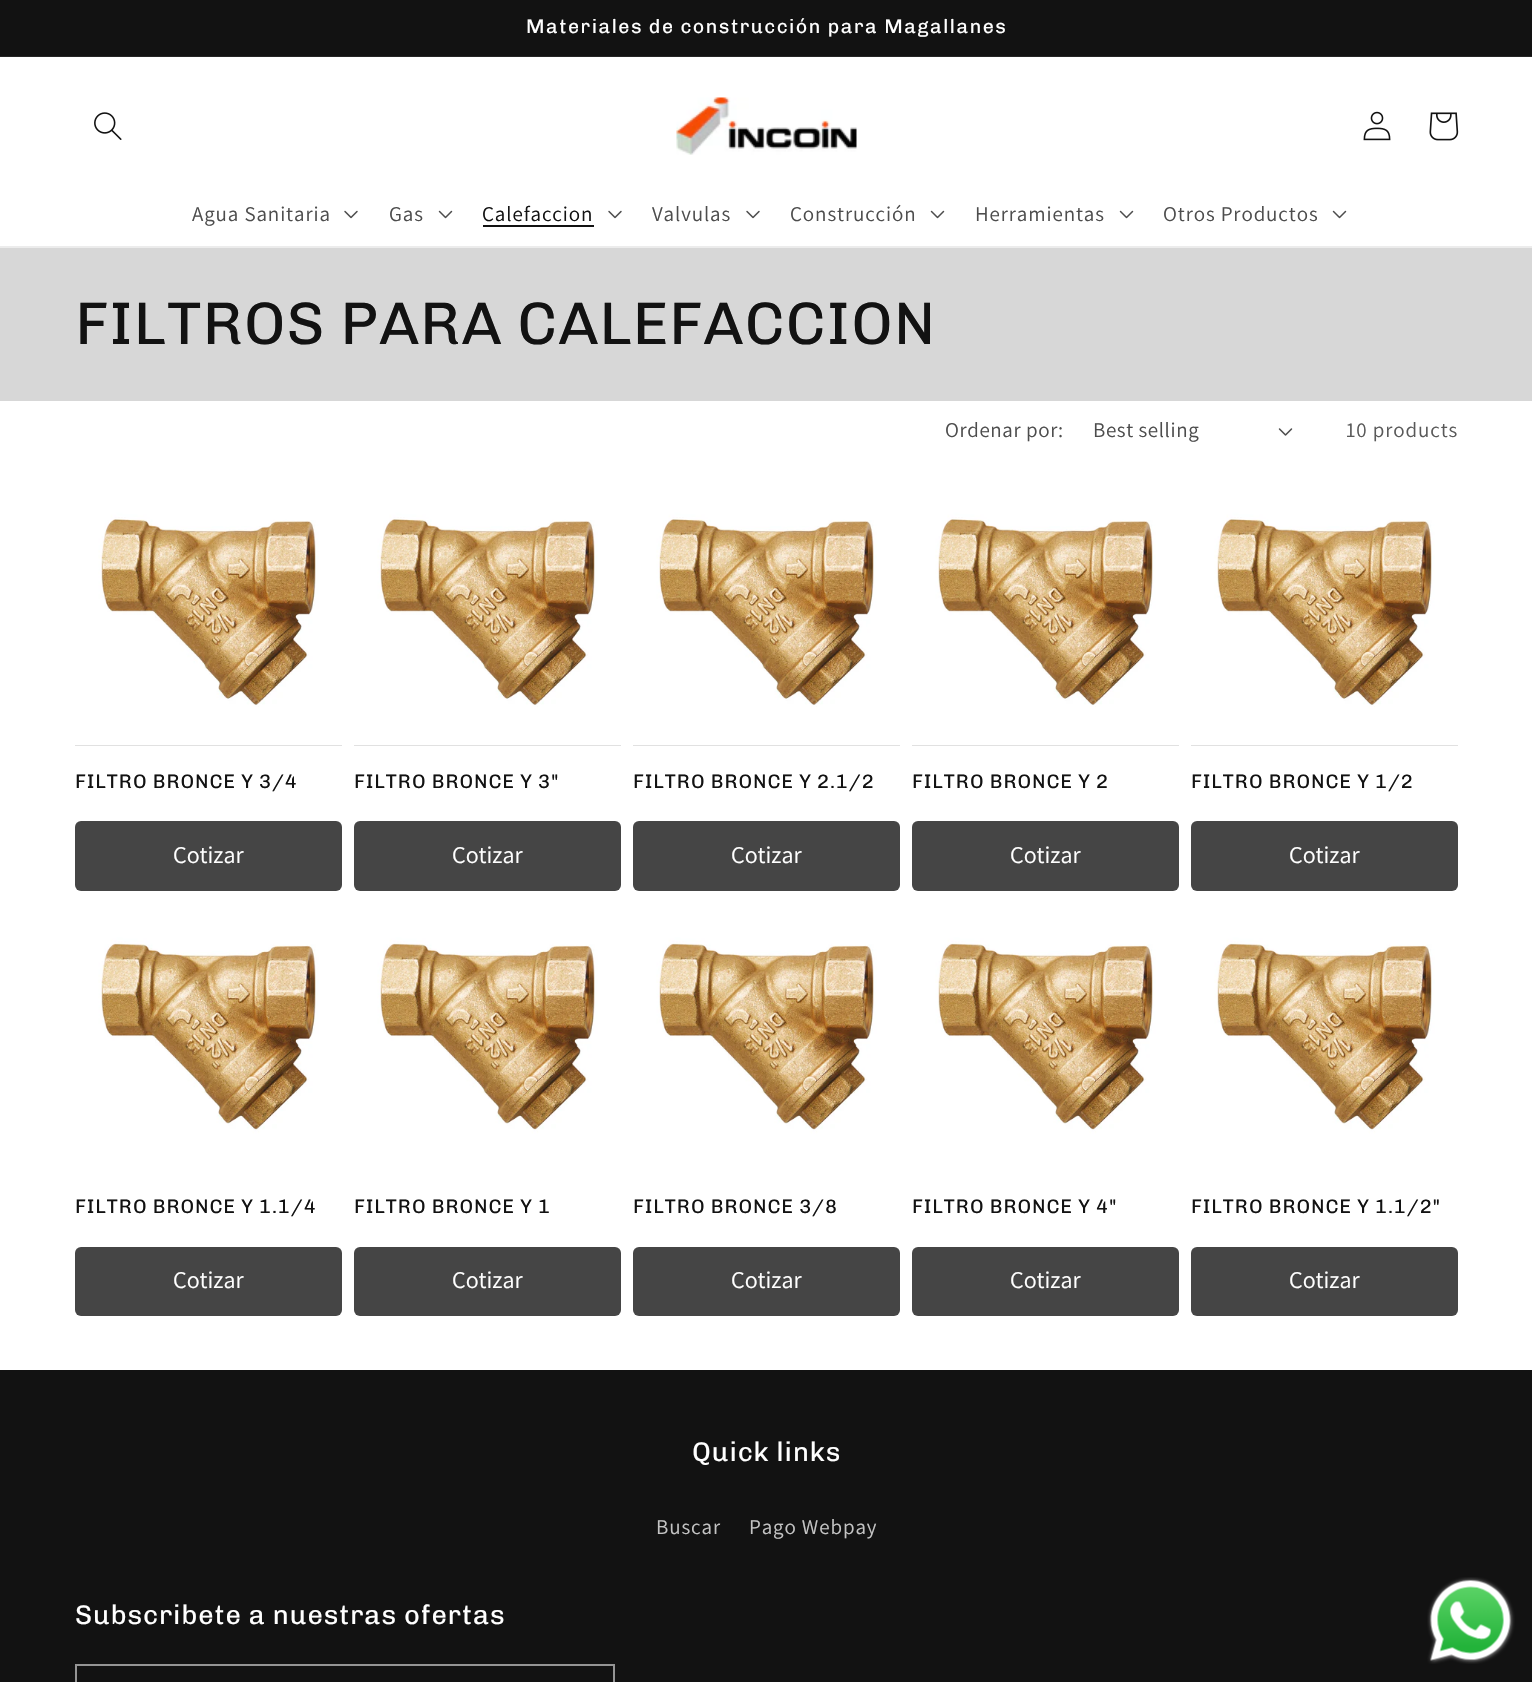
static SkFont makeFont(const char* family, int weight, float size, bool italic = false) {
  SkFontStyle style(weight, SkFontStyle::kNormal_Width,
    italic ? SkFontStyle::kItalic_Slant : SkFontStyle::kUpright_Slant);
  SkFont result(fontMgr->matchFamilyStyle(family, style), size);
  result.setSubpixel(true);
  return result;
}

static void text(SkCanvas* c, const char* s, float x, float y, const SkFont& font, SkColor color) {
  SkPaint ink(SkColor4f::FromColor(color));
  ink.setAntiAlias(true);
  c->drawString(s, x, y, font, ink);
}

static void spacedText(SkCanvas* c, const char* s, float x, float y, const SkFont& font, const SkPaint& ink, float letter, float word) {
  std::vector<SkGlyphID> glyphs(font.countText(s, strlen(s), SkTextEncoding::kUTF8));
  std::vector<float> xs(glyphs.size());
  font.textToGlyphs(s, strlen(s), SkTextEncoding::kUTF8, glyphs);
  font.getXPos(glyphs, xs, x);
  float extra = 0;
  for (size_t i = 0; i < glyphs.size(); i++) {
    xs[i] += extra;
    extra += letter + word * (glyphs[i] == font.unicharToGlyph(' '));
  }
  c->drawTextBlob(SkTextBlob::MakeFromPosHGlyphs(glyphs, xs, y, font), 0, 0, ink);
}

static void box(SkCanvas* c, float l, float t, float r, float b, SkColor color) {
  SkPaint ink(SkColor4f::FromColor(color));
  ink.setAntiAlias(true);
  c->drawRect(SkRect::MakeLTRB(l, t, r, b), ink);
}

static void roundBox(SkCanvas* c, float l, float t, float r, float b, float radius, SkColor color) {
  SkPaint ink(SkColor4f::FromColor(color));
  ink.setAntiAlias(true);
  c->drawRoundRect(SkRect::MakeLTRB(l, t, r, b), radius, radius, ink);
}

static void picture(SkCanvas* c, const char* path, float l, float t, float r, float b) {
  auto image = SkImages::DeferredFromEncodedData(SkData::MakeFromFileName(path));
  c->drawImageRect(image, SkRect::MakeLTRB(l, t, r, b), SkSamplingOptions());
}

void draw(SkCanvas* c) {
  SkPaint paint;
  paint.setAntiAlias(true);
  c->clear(0xffffffff);
  box(c, 0, 0, 1532, 56, 0xff121212);
  box(c, 0, 56, 1532, 57, 0xff252525);
  SkFont face1 = makeFont("Chivo", 400, 19.5f);
  paint.setColor(0xffffffff);
  spacedText(c, "Materiales de construcción para Magallanes", 526, 33, face1, paint, 1.5f, 0);
  box(c, 0, 246, 1532, 248, 0xffececec);
  picture(c, "img_01.png", 94, 112, 122, 140);
  picture(c, "img_02.png", 676, 97, 857, 155);
  picture(c, "img_03.png", 1363, 111, 1391, 141);
  picture(c, "img_04.png", 1429, 112, 1459, 141);
  SkFont face2 = makeFont("Assistant", 400, 21);
  paint.setColor(0xff4d4d4d);
  spacedText(c, "Agua Sanitaria", 192, 221, face2, paint, 0.9f, 0);
  picture(c, "img_05.png", 344, 210, 358, 219);
  spacedText(c, "Gas", 389, 221, face2, paint, 0.9f, 0);
  picture(c, "img_06.png", 438, 210, 453, 219);
  paint.setColor(0xff121212);
  spacedText(c, "Calefaccion", 482, 221, face2, paint, 0.9f, 0);
  box(c, 483, 225, 594, 227, 0xff121212);
  picture(c, "img_05.png", 608, 210, 622, 219);
  paint.setColor(0xff4d4d4d);
  spacedText(c, "Valvulas", 652, 221, face2, paint, 0.9f, 0);
  picture(c, "img_05.png", 746, 210, 760, 219);
  spacedText(c, "Construcción", 790, 221, face2, paint, 0.9f, 0);
  picture(c, "img_06.png", 930, 210, 945, 219);
  spacedText(c, "Herramientas", 975, 221, face2, paint, 0.9f, 0);
  picture(c, "img_06.png", 1119, 210, 1134, 219);
  spacedText(c, "Otros Productos", 1163, 221, face2, paint, 0.9f, 0);
  picture(c, "img_06.png", 1332, 210, 1347, 219);
  box(c, 0, 248, 1532, 401, 0xffd7d7d7);
  SkFont face3 = makeFont("Chivo", 400, 60);
  paint.setColor(0xff121212);
  spacedText(c, "FILTROS PARA CALEFACCION", 75, 344, face3, paint, 0.9f, 0);
  paint.setColor(0xff4d4d4d);
  spacedText(c, "Ordenar por:", 945, 437, face2, paint, 0.6f, 0);
  spacedText(c, "Best selling", 1093, 437, face2, paint, 0.6f, 0);
  picture(c, "img_07.png", 1278, 428, 1293, 436);
  paint.setColor(0xff595959);
  spacedText(c, "10 products", 1346, 437, face2, paint, 0.9f, 0);
  box(c, 75, 745, 342, 746, 0xffd7d7d7);
  picture(c, "img_08.png", 75, 479, 342, 746);
  paint.setColor(0xff121212);
  spacedText(c, "FILTRO BRONCE Y 3/4", 75, 788, face1, paint, 0.9f, 0);
  roundBox(c, 75, 821, 342, 891, 6, 0xff454545);
  SkFont face4 = makeFont("Assistant", 400, 24);
  text(c, "Cotizar", 173, 863, face4, 0xffffffff);
  box(c, 354, 745, 621, 746, 0xffd7d7d7);
  picture(c, "img_09.png", 354, 479, 621, 746);
  spacedText(c, "FILTRO BRONCE Y 3\"", 354, 788, face1, paint, 0.9f, 0);
  roundBox(c, 354, 821, 621, 891, 6, 0xff454545);
  text(c, "Cotizar", 452, 863, face4, 0xffffffff);
  box(c, 633, 745, 900, 746, 0xffd7d7d7);
  picture(c, "img_10.png", 633, 479, 900, 746);
  spacedText(c, "FILTRO BRONCE Y 2.1/2", 633, 788, face1, paint, 0.9f, 0);
  roundBox(c, 633, 821, 900, 891, 6, 0xff454545);
  text(c, "Cotizar", 731, 863, face4, 0xffffffff);
  box(c, 912, 745, 1179, 746, 0xffd7d7d7);
  picture(c, "img_08.png", 912, 479, 1179, 746);
  spacedText(c, "FILTRO BRONCE Y 2", 912, 788, face1, paint, 0.9f, 0);
  roundBox(c, 912, 821, 1179, 891, 6, 0xff454545);
  text(c, "Cotizar", 1010, 863, face4, 0xffffffff);
  box(c, 1191, 745, 1458, 746, 0xffd7d7d7);
  picture(c, "img_08.png", 1191, 479, 1458, 746);
  spacedText(c, "FILTRO BRONCE Y 1/2", 1191, 788, face1, paint, 0.9f, 0);
  roundBox(c, 1191, 821, 1458, 891, 6, 0xff454545);
  text(c, "Cotizar", 1289, 863, face4, 0xffffffff);
  picture(c, "img_11.png", 75, 903, 342, 1170);
  spacedText(c, "FILTRO BRONCE Y 1.1/4", 75, 1213, face1, paint, 0.9f, 0);
  roundBox(c, 75, 1247, 342, 1316, 6, 0xff454545);
  text(c, "Cotizar", 173, 1288, face4, 0xffffffff);
  picture(c, "img_12.png", 354, 903, 621, 1170);
  spacedText(c, "FILTRO BRONCE Y 1", 354, 1213, face1, paint, 0.9f, 0);
  roundBox(c, 354, 1247, 621, 1316, 6, 0xff454545);
  text(c, "Cotizar", 452, 1288, face4, 0xffffffff);
  picture(c, "img_13.png", 633, 903, 900, 1170);
  spacedText(c, "FILTRO BRONCE 3/8", 633, 1213, face1, paint, 0.9f, 0);
  roundBox(c, 633, 1247, 900, 1316, 6, 0xff454545);
  text(c, "Cotizar", 731, 1288, face4, 0xffffffff);
  picture(c, "img_11.png", 912, 903, 1179, 1170);
  spacedText(c, "FILTRO BRONCE Y 4\"", 912, 1213, face1, paint, 0.9f, 0);
  roundBox(c, 912, 1247, 1179, 1316, 6, 0xff454545);
  text(c, "Cotizar", 1010, 1288, face4, 0xffffffff);
  picture(c, "img_11.png", 1191, 903, 1458, 1170);
  spacedText(c, "FILTRO BRONCE Y 1.1/2\"", 1191, 1213, face1, paint, 0.9f, 0);
  roundBox(c, 1191, 1247, 1458, 1316, 6, 0xff454545);
  text(c, "Cotizar", 1289, 1288, face4, 0xffffffff);
  box(c, 0, 1370, 1532, 1682, 0xff121212);
  SkFont face5 = makeFont("Chivo", 400, 27);
  paint.setColor(0xffffffff);
  spacedText(c, "Quick links", 692, 1461, face5, paint, 0.9f, 0);
  paint.setColor(0xffc4c4c4);
  spacedText(c, "Buscar", 656, 1534, face2, paint, 0.9f, 0);
  spacedText(c, "Pago Webpay", 749, 1534, face2, paint, 0.9f, 0);
  paint.setColor(0xffffffff);
  spacedText(c, "Subscribete a nuestras ofertas", 75, 1624, face5, paint, 0.9f, 0);
  paint.setStyle(SkPaint::kStroke_Style);
  paint.setStrokeWidth(2);
  paint.setColor(0xff949494);
  c->drawRect(SkRect::MakeLTRB(76, 1665, 614, 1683), paint);
  picture(c, "img_14.png", 1427, 1577, 1515, 1664);
}
